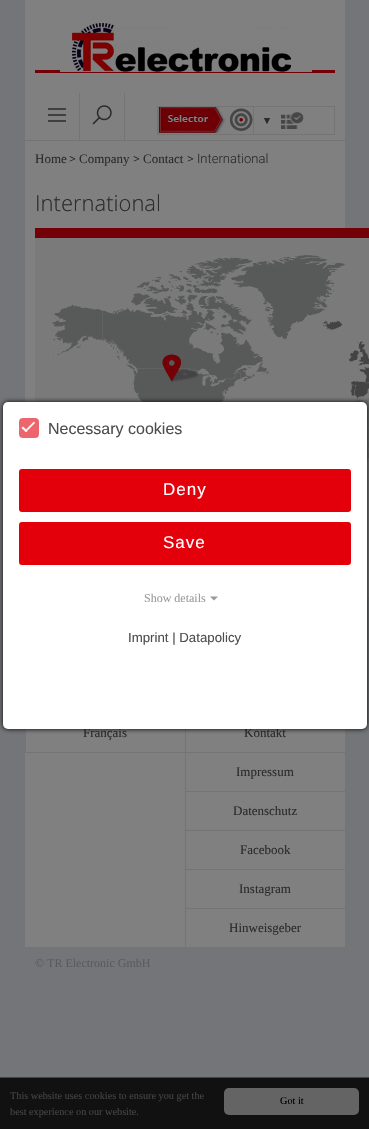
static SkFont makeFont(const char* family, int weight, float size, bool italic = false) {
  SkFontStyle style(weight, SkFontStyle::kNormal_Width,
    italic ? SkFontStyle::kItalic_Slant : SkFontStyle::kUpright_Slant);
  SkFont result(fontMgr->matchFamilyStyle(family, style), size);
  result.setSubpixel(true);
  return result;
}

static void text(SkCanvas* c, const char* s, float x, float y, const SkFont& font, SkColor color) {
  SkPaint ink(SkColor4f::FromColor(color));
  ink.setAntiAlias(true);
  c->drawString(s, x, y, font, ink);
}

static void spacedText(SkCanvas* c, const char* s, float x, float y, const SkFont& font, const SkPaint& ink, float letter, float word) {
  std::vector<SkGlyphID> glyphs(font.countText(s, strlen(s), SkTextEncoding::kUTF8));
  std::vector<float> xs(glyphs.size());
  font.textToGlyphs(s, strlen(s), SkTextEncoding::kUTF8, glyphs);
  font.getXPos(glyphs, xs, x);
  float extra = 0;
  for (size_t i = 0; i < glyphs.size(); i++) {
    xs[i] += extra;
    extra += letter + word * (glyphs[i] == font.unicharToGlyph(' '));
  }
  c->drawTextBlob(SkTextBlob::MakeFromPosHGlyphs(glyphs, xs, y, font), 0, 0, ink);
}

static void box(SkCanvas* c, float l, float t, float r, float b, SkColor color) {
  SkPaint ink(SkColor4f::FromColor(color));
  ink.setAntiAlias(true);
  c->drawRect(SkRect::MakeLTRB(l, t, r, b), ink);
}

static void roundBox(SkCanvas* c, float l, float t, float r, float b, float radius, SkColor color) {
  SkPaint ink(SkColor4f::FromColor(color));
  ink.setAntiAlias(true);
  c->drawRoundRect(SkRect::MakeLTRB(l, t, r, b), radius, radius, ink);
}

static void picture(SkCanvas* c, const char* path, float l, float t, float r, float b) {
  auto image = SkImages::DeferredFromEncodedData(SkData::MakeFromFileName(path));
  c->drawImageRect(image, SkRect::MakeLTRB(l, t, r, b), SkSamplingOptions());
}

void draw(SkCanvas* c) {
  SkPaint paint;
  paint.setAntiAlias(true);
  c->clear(0xff747578);
  box(c, 25, 0, 345, 402, 0xff808080);
  box(c, 25, 140, 345, 141, 0xff747474);
  box(c, 35, 70, 335, 73, 0xff720006);
  box(c, 60, 70, 312, 72, 0xff808080);
  picture(c, "img_01.png", 72, 23, 291, 72);
  box(c, 79, 93, 80, 140, 0xff747474);
  picture(c, "img_02.png", 48, 108, 66, 122);
  box(c, 124, 93, 125, 140, 0xff747474);
  picture(c, "img_03.png", 92, 105, 112, 125);
  paint.setStyle(SkPaint::kStroke_Style);
  paint.setStrokeWidth(1);
  paint.setColor(0xff747474);
  c->drawRect(SkRect::MakeLTRB(157.5f, 106.5f, 334.5f, 134.5f), paint);
  box(c, 158, 107, 159, 134, 0xff747474);
  picture(c, "img_04.png", 159, 107, 253, 133);
  box(c, 253, 107, 254, 134, 0xff747474);
  picture(c, "img_05.png", 264, 118, 270, 124);
  picture(c, "img_06.png", 281, 112, 304, 129);
  SkFont face1 = makeFont("Liberation Serif", 400, 13);
  text(c, "Home", 35, 163, face1, 0xff2b2b2b);
  SkFont face2 = makeFont("Roboto", 300, 13);
  text(c, ">", 69, 163, face2, 0xff2b2b2b);
  text(c, "Company", 79, 163, face1, 0xff2b2b2b);
  text(c, ">", 133, 163, face2, 0xff2b2b2b);
  text(c, "Contact", 143, 163, face1, 0xff2b2b2b);
  text(c, "> International", 187, 163, face2, 0xff2b2b2b);
  SkFont face3 = makeFont("Open Sans", 300, 22);
  text(c, "International", 35, 211, face3, 0xff2b2b2b);
  box(c, 35, 228, 369, 238, 0xff720006);
  picture(c, "img_07.png", 35, 238, 369, 597);
  box(c, 25, 729, 345, 947, 0xff808080);
  box(c, 25, 752, 345, 753, 0xff747474);
  box(c, 25, 729, 26, 753, 0xff747474);
  text(c, "Français", 83, 737, face1, 0xff2b2b2b);
  box(c, 185, 729, 186, 791, 0xff747474);
  text(c, "Kontakt", 244, 737, face1, 0xff2b2b2b);
  text(c, "Impressum", 236, 776, face1, 0xff2b2b2b);
  box(c, 185, 791, 345, 792, 0xff747474);
  box(c, 185, 791, 186, 830, 0xff747474);
  text(c, "Datenschutz", 233, 815, face1, 0xff2b2b2b);
  box(c, 185, 830, 345, 831, 0xff747474);
  box(c, 185, 830, 186, 869, 0xff747474);
  text(c, "Facebook", 240, 854, face1, 0xff2b2b2b);
  box(c, 185, 869, 345, 870, 0xff747474);
  box(c, 185, 869, 186, 908, 0xff747474);
  text(c, "Instagram", 239, 893, face1, 0xff2b2b2b);
  box(c, 185, 908, 345, 909, 0xff747474);
  box(c, 185, 908, 186, 947, 0xff747474);
  text(c, "Hinweisgeber", 229, 932, face1, 0xff2b2b2b);
  SkFont face4 = makeFont("Liberation Serif", 400, 12);
  text(c, "© TR Electronic GmbH", 35, 967, face4, 0xff5a5a5a);
  paint.setStyle(SkPaint::kFill_Style);
  paint.setColor(0xff000000);
  paint.setMaskFilter(SkMaskFilter::MakeBlur(kNormal_SkBlurStyle, 2.5f));
  c->drawRoundRect(SkRect::MakeLTRB(3, 402, 367, 729), 5, 5, paint);
  paint.setMaskFilter(nullptr);
  roundBox(c, 3, 402, 367, 729, 5, 0xffffffff);
  paint.setColor(0xffee666d);
  c->drawRoundRect(SkRect::MakeLTRB(20, 419, 38, 437), 3, 3, paint);
  paint.setStyle(SkPaint::kStroke_Style);
  paint.setStrokeWidth(2);
  c->drawRoundRect(SkRect::MakeLTRB(20, 419, 38, 437), 3, 3, paint);
  paint.setStyle(SkPaint::kFill_Style);
  paint.setColor(0xffffffff);
  c->drawPath(SkPathBuilder().moveTo(34, 421.5f).lineTo(35, 423).lineTo(26, 432).lineTo(24.5f, 431).close().detach(), paint);
  c->drawPath(SkPathBuilder().moveTo(23, 426.5f).lineTo(27.5f, 431).lineTo(26, 432).lineTo(21.5f, 428).close().detach(), paint);
  SkFont face5 = makeFont("Liberation Sans", 400, 16);
  text(c, "Necessary cookies", 48, 434, face5, 0xff4d4d4d);
  paint.setColor(0xffe3000b);
  c->drawRoundRect(SkRect::MakeLTRB(20, 470, 350, 511), 2, 2, paint);
  paint.setStyle(SkPaint::kStroke_Style);
  c->drawRoundRect(SkRect::MakeLTRB(20, 470, 350, 511), 2, 2, paint);
  SkFont face6 = makeFont("Liberation Sans", 400, 17);
  paint.setStyle(SkPaint::kFill_Style);
  paint.setColor(0xffffffff);
  spacedText(c, "Deny", 163, 495, face6, paint, 1, 0);
  paint.setColor(0xffe3000b);
  c->drawRoundRect(SkRect::MakeLTRB(20, 523, 350, 564), 2, 2, paint);
  paint.setStyle(SkPaint::kStroke_Style);
  c->drawRoundRect(SkRect::MakeLTRB(20, 523, 350, 564), 2, 2, paint);
  paint.setStyle(SkPaint::kFill_Style);
  paint.setColor(0xffffffff);
  spacedText(c, "Save", 163, 548, face6, paint, 1, 0);
  text(c, "Show details", 144, 602, face4, 0xff999999);
  paint.setColor(0xff999999);
  c->drawPath(SkPathBuilder().moveTo(210, 596.5f).lineTo(218, 596.5f).lineTo(214, 600.5f).close().detach(), paint);
  SkFont face7 = makeFont("Liberation Sans", 400, 13.25f);
  text(c, "Imprint | Datapolicy", 128, 642, face7, 0xff4d4d4d);
  box(c, 0, 1078, 369, 1129, 0xff111111);
  box(c, 0, 1077, 369, 1078, 0xff444444);
  SkFont face8 = makeFont("Liberation Serif", 400, 10.25f);
  text(c, "This website uses cookies to ensure you get the", 10, 1099, face8, 0xff444444);
  text(c, "best experience on our website.", 10, 1115, face8, 0xff444444);
  roundBox(c, 224, 1088, 359, 1115, 5, 0xff646464);
  text(c, "Got it", 280, 1104, face8, 0xff000000);
}
